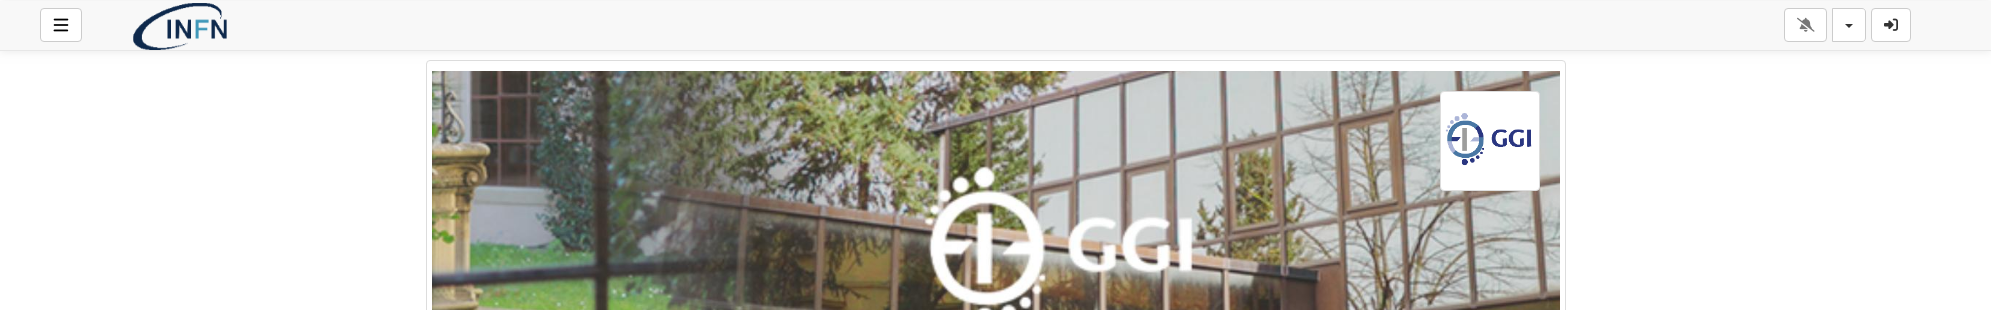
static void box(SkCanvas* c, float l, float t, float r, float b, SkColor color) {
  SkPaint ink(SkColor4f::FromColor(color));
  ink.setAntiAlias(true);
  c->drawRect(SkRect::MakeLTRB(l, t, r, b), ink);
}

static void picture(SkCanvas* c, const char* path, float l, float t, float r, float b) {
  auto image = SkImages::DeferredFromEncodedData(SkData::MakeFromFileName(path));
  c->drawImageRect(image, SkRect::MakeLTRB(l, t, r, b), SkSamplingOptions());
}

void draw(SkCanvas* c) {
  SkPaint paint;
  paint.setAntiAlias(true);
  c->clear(0xffffffff);
  paint.setStyle(SkPaint::kStroke_Style);
  paint.setStrokeWidth(1);
  paint.setColor(0xffdddddd);
  c->drawRoundRect(SkRect::MakeLTRB(426.5f, 60.5f, 1565.5f, 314.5f), 3.5f, 3.5f, paint);
  paint.setStyle(SkPaint::kFill_Style);
  paint.setColor(0x14000000);
  paint.setMaskFilter(SkMaskFilter::MakeBlur(kNormal_SkBlurStyle, 4));
  c->drawRect(SkRect::MakeLTRB(0, 1, 1991, 52), paint);
  paint.setMaskFilter(nullptr);
  box(c, 0, 1, 1991, 50, 0xfff8f8f8);
  box(c, 0, 50, 1991, 51, 0xffe7e7e7);
  paint.setColor(0xffffffff);
  c->drawRoundRect(SkRect::MakeLTRB(40.5f, 8.5f, 81.5f, 41.5f), 3.5f, 3.5f, paint);
  paint.setStyle(SkPaint::kStroke_Style);
  paint.setColor(0xffcccccc);
  c->drawRoundRect(SkRect::MakeLTRB(40.5f, 8.5f, 81.5f, 41.5f), 3.5f, 3.5f, paint);
  picture(c, "img_01.png", 53, 18, 69, 32);
  picture(c, "img_02.png", 133, 3, 227, 50);
  paint.setStyle(SkPaint::kFill_Style);
  paint.setColor(0xffffffff);
  c->drawRoundRect(SkRect::MakeLTRB(1784.5f, 8.5f, 1826.5f, 41.5f), 3.5f, 3.5f, paint);
  paint.setStyle(SkPaint::kStroke_Style);
  paint.setColor(0xffcccccc);
  c->drawRoundRect(SkRect::MakeLTRB(1784.5f, 8.5f, 1826.5f, 41.5f), 3.5f, 3.5f, paint);
  picture(c, "img_03.png", 1797, 17, 1815, 32);
  paint.setStyle(SkPaint::kFill_Style);
  paint.setColor(0xffffffff);
  c->drawPath(SkPathBuilder().moveTo(1832.5f, 8.5f).lineTo(1862, 8.5f).cubicTo(1864, 8.5f, 1865.5f, 10, 1865.5f, 12).lineTo(1865.5f, 38).cubicTo(1865.5f, 40, 1864, 41.5f, 1862, 41.5f).lineTo(1832.5f, 41.5f).close().detach(), paint);
  paint.setStyle(SkPaint::kStroke_Style);
  paint.setColor(0xffcccccc);
  c->drawPath(SkPathBuilder().moveTo(1832.5f, 8.5f).lineTo(1862, 8.5f).cubicTo(1864, 8.5f, 1865.5f, 10, 1865.5f, 12).lineTo(1865.5f, 38).cubicTo(1865.5f, 40, 1864, 41.5f, 1862, 41.5f).lineTo(1832.5f, 41.5f).close().detach(), paint);
  paint.setStyle(SkPaint::kFill_Style);
  paint.setColor(0xff333333);
  c->drawPath(SkPathBuilder().moveTo(1845, 24).lineTo(1853, 24).lineTo(1849, 28).close().detach(), paint);
  paint.setColor(0xffffffff);
  c->drawRoundRect(SkRect::MakeLTRB(1871.5f, 8.5f, 1910.5f, 41.5f), 3.5f, 3.5f, paint);
  paint.setStyle(SkPaint::kStroke_Style);
  paint.setColor(0xffcccccc);
  c->drawRoundRect(SkRect::MakeLTRB(1871.5f, 8.5f, 1910.5f, 41.5f), 3.5f, 3.5f, paint);
  picture(c, "img_04.png", 1884, 18, 1898, 31);
  picture(c, "img_05.png", 432, 71, 1560, 310);
  paint.setStyle(SkPaint::kFill_Style);
  paint.setColor(0xffffffff);
  c->drawRoundRect(SkRect::MakeLTRB(1440.5f, 91.5f, 1539.5f, 190.5f), 3.5f, 3.5f, paint);
  paint.setStyle(SkPaint::kStroke_Style);
  paint.setColor(0xffdddddd);
  c->drawRoundRect(SkRect::MakeLTRB(1440.5f, 91.5f, 1539.5f, 190.5f), 3.5f, 3.5f, paint);
  picture(c, "img_06.png", 1445, 113, 1532, 166);
}
